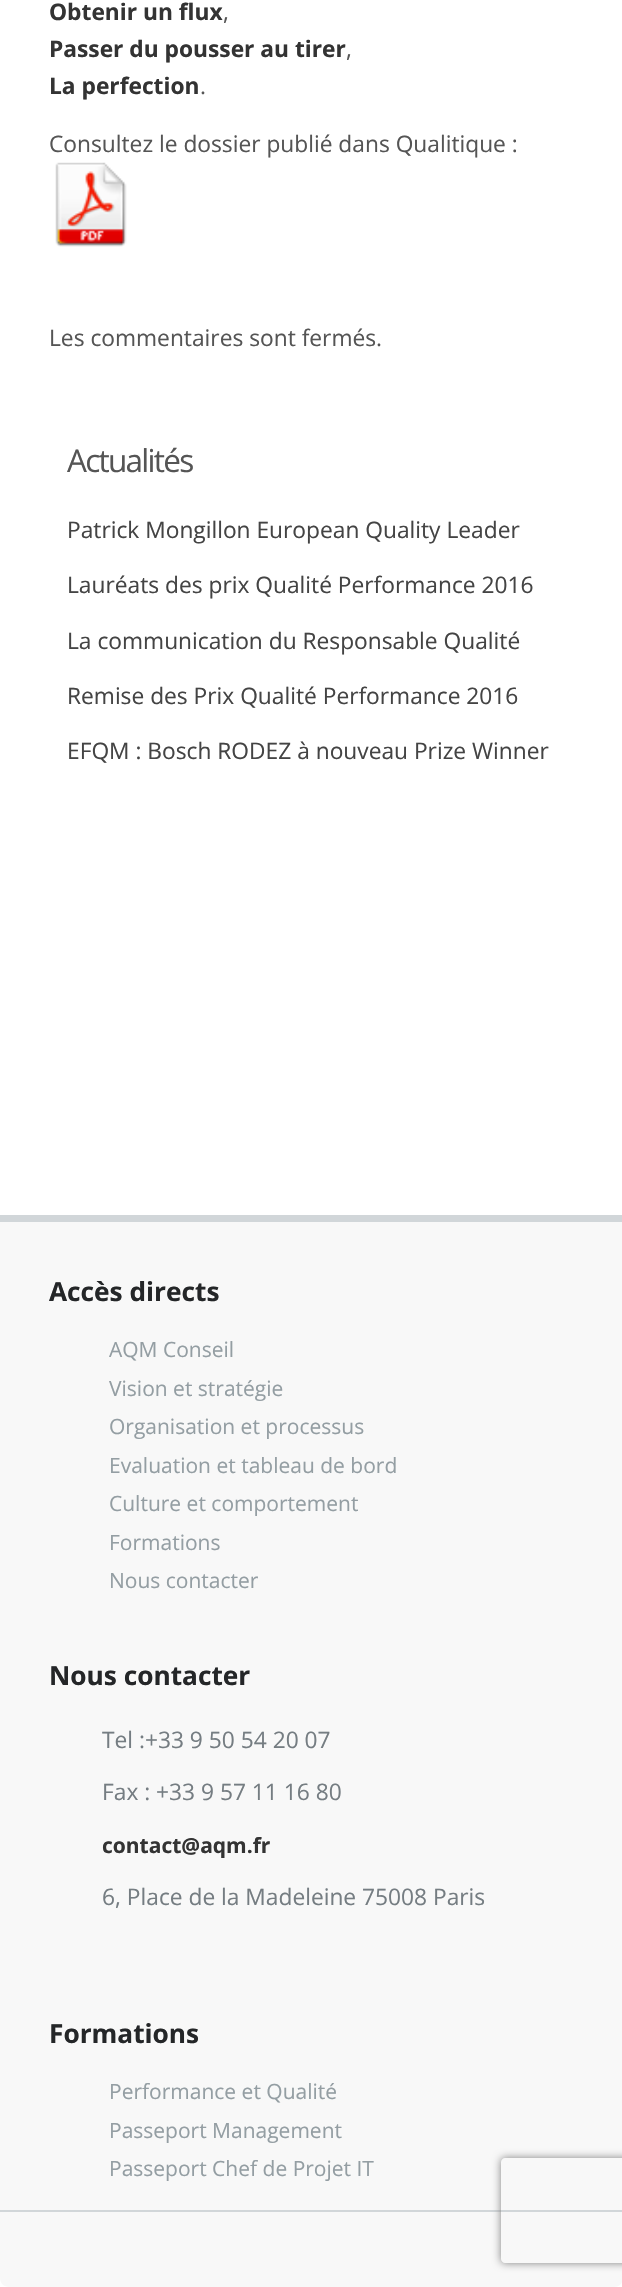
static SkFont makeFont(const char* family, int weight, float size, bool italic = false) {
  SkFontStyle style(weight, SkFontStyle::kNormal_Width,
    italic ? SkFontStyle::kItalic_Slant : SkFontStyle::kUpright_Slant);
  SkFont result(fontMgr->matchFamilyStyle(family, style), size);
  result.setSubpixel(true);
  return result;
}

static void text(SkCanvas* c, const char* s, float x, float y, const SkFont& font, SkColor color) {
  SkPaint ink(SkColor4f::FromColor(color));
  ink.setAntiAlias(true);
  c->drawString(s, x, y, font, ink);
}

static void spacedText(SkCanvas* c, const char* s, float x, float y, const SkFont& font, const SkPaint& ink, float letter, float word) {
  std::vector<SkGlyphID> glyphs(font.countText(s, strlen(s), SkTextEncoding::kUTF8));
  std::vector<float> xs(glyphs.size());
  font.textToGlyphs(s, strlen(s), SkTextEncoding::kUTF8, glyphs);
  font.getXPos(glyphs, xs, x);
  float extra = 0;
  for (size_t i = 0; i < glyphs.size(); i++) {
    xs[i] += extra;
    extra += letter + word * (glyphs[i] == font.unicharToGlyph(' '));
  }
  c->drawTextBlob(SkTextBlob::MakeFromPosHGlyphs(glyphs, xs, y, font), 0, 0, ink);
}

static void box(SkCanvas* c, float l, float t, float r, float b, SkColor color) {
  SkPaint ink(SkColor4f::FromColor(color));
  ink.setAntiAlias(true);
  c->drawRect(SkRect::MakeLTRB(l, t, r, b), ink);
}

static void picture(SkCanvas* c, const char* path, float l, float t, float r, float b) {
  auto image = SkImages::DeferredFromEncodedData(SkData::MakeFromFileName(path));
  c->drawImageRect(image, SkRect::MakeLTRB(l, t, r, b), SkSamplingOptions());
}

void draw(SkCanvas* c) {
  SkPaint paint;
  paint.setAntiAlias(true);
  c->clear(0xffffffff);
  SkFont face1 = makeFont("Open Sans", 700, 22.75f);
  text(c, "Obtenir un flux", 49, 20, face1, 0xff333333);
  SkFont face2 = makeFont("Open Sans", 400, 22.75f);
  text(c, ",", 223, 20, face2, 0xff555555);
  text(c, "Passer du pousser au tirer", 49, 57, face1, 0xff333333);
  text(c, ",", 346, 57, face2, 0xff555555);
  text(c, "La perfection", 49, 94, face1, 0xff333333);
  text(c, ".", 200, 94, face2, 0xff555555);
  text(c, "Consultez le dossier publié dans Qualitique :", 49, 152, face2, 0xff555555);
  picture(c, "img_01.png", 55, 162, 127, 247);
  text(c, "Les commentaires sont fermés.", 49, 346, face2, 0xff555555);
  SkFont face3 = makeFont("Open Sans", 400, 31.5f);
  paint.setColor(0xff555555);
  spacedText(c, "Actualités", 67, 472, face3, paint, -1.75f, 0);
  text(c, "Patrick Mongillon European Quality Leader", 67, 538, face2, 0xff444444);
  text(c, "Lauréats des prix Qualité Performance 2016", 67, 593, face2, 0xff444444);
  text(c, "La communication du Responsable Qualité", 67, 649, face2, 0xff444444);
  text(c, "Remise des Prix Qualité Performance 2016", 67, 704, face2, 0xff444444);
  text(c, "EFQM : Bosch RODEZ à nouveau Prize Winner", 67, 759, face2, 0xff444444);
  paint.setColor(0xfff8f8f8);
  c->drawPath(SkPathBuilder().moveTo(0, 1215).lineTo(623, 1215).lineTo(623, 2278).cubicTo(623, 2283, 619, 2287, 614, 2287).lineTo(9, 2287).cubicTo(4, 2287, 0, 2283, 0, 2278).close().detach(), paint);
  box(c, 0, 1215, 622, 1222, 0xffd1d6d9);
  SkFont face4 = makeFont("Open Sans", 700, 26.25f);
  text(c, "Accès directs", 49, 1301, face4, 0xff242628);
  SkFont face5 = makeFont("Open Sans", 400, 21);
  text(c, "AQM Conseil", 109, 1357, face5, 0xff949ea3);
  text(c, "Vision et stratégie", 109, 1396, face5, 0xff949ea3);
  text(c, "Organisation et processus", 109, 1434, face5, 0xff949ea3);
  text(c, "Evaluation et tableau de bord", 109, 1473, face5, 0xff949ea3);
  text(c, "Culture et comportement", 109, 1511, face5, 0xff949ea3);
  text(c, "Formations", 109, 1550, face5, 0xff949ea3);
  text(c, "Nous contacter", 109, 1588, face5, 0xff949ea3);
  text(c, "Nous contacter", 49, 1685, face4, 0xff242628);
  text(c, "Tel :+33 9 50 54 20 07", 102, 1748, face2, 0xff757d82);
  text(c, "Fax : +33 9 57 11 16 80", 102, 1800, face2, 0xff757d82);
  SkFont face6 = makeFont("Open Sans", 700, 21);
  text(c, "contact@aqm.fr", 102, 1853, face6, 0xff333333);
  text(c, "6, Place de la Madeleine 75008 Paris", 102, 1905, face2, 0xff757d82);
  text(c, "Formations", 49, 2043, face4, 0xff242628);
  text(c, "Performance et Qualité", 109, 2099, face5, 0xff949ea3);
  text(c, "Passeport Management", 109, 2138, face5, 0xff949ea3);
  text(c, "Passeport Chef de Projet IT", 109, 2176, face5, 0xff949ea3);
  box(c, 0, 2210, 622, 2212, 0xffd1d6d9);
  c->save();
  c->clipPath(SkPathBuilder(SkPathFillType::kEvenOdd).moveTo(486, 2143).lineTo(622, 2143).lineTo(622, 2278).lineTo(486, 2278).close().moveTo(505, 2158).lineTo(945, 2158).cubicTo(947, 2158, 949, 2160, 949, 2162).lineTo(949, 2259).cubicTo(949, 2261, 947, 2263, 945, 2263).lineTo(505, 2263).cubicTo(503, 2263, 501, 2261, 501, 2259).lineTo(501, 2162).cubicTo(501, 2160, 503, 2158, 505, 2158).close().detach(), true);
  paint.setColor(0xff808080);
  paint.setMaskFilter(SkMaskFilter::MakeBlur(kNormal_SkBlurStyle, 4.5f));
  c->drawRoundRect(SkRect::MakeLTRB(501, 2158, 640, 2263), 4, 4, paint);
  paint.setMaskFilter(nullptr);
  c->restore();
}
